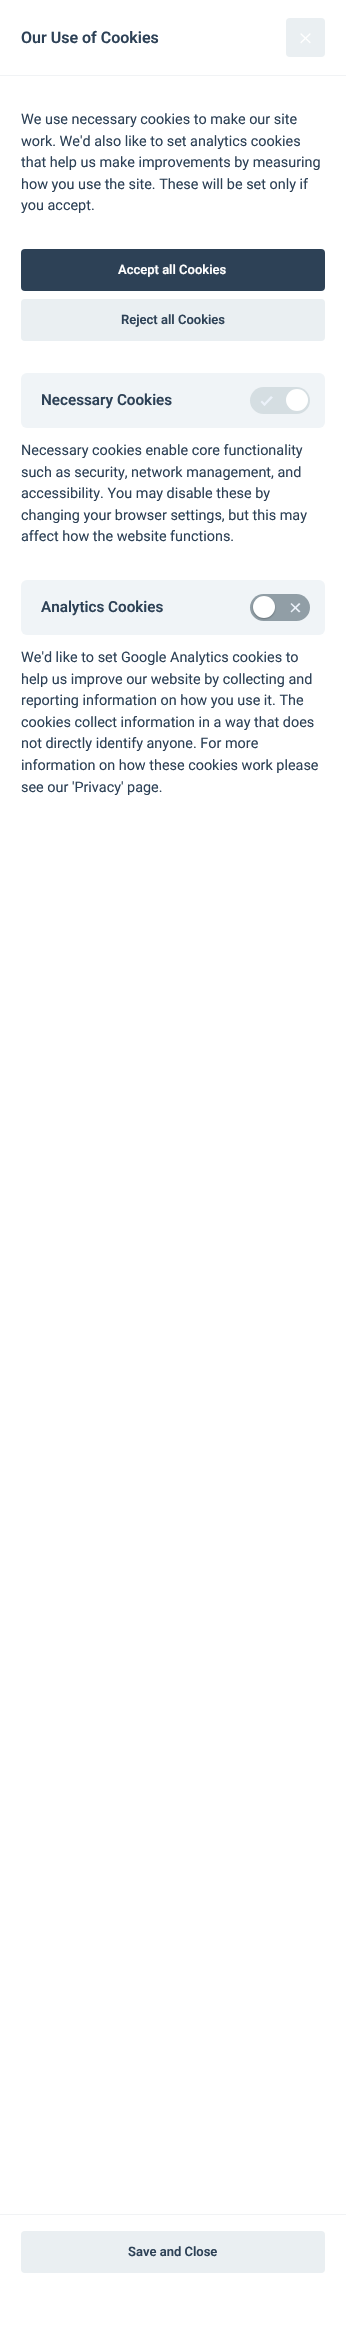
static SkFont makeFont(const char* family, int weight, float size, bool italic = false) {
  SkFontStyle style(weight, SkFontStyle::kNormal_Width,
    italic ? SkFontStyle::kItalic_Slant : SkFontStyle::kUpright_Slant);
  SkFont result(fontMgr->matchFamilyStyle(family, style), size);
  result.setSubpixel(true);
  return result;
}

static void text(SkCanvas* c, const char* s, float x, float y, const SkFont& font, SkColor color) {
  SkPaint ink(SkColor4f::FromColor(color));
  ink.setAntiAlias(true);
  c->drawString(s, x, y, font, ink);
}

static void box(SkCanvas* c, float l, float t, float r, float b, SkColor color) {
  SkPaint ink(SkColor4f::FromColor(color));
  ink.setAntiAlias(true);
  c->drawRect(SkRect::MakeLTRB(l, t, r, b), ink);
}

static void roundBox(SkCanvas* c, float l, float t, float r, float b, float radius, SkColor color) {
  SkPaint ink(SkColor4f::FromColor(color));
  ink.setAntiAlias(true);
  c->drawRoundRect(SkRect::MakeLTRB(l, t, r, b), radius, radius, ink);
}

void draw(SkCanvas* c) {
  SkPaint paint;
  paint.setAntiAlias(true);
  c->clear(0xffffffff);
  box(c, 0, 75, 346, 76, 0xfff1f3f5);
  SkFont face1 = makeFont("Roboto", 600, 16);
  text(c, "Our Use of Cookies", 21, 43, face1, 0xff2d4156);
  roundBox(c, 286, 18, 325, 57, 4, 0xffeaeff2);
  paint.setColor(0xffffffff);
  c->drawPath(SkPathBuilder().moveTo(310.5f, 33.5f).cubicTo(310.5f, 33.5f, 310.5f, 34, 310.5f, 34.5f).lineTo(301.5f, 43).cubicTo(301.5f, 43.5f, 301, 43.5f, 300.5f, 43).cubicTo(300.5f, 43, 300.5f, 42.5f, 300.5f, 42).lineTo(309.5f, 33.5f).cubicTo(309.5f, 33, 310, 33, 310.5f, 33.5f).close().detach(), paint);
  c->drawPath(SkPathBuilder().moveTo(300.5f, 33.5f).cubicTo(301, 33, 301.5f, 33, 301.5f, 33.5f).lineTo(310.5f, 42).cubicTo(310.5f, 42.5f, 310.5f, 43, 310.5f, 43).cubicTo(310, 43.5f, 309.5f, 43.5f, 309.5f, 43).lineTo(300.5f, 34.5f).cubicTo(300.5f, 34, 300.5f, 33.5f, 300.5f, 33.5f).close().detach(), paint);
  SkFont face2 = makeFont("Roboto", 400, 14.4f);
  text(c, "We use necessary cookies to make our site", 21, 124, face2, 0xff2d4156);
  text(c, "work. We'd also like to set analytics cookies", 21, 146, face2, 0xff2d4156);
  text(c, "that help us make improvements by measuring", 21, 167, face2, 0xff2d4156);
  text(c, "how you use the site. These will be set only if", 21, 189, face2, 0xff2d4156);
  text(c, "you accept.", 21, 210, face2, 0xff2d4156);
  roundBox(c, 21, 249, 325, 291, 4, 0xff2d4156);
  SkFont face3 = makeFont("Roboto", 600, 13);
  text(c, "Accept all Cookies", 118, 274, face3, 0xffffffff);
  roundBox(c, 21, 299, 325, 341, 4, 0xffeaeff2);
  text(c, "Reject all Cookies", 121, 324, face3, 0xff2d4156);
  roundBox(c, 21, 373, 325, 428, 6, 0xfff0f4f7);
  SkFont face4 = makeFont("Roboto", 600, 15.25f);
  text(c, "Necessary Cookies", 41, 405, face4, 0xff2d4156);
  roundBox(c, 250, 387, 310, 414, 13.5f, 0xffd5dee2);
  paint.setColor(0xffecf2fa);
  c->drawPath(SkPathBuilder().moveTo(271, 396).lineTo(273, 397.5f).lineTo(264.5f, 406).lineTo(263, 404.5f).close().detach(), paint);
  c->drawPath(SkPathBuilder().moveTo(262, 400.5f).lineTo(266, 404.5f).lineTo(264.5f, 406).lineTo(260.5f, 402).close().detach(), paint);
  paint.setColor(0xffffffff);
  c->drawCircle(297, 400, 11, paint);
  text(c, "Necessary cookies enable core functionality", 21, 455, face2, 0xff2d4156);
  text(c, "such as security, network management, and", 21, 477, face2, 0xff2d4156);
  text(c, "accessibility. You may disable these by", 21, 498, face2, 0xff2d4156);
  text(c, "changing your browser settings, but this may", 21, 520, face2, 0xff2d4156);
  text(c, "affect how the website functions.", 21, 541, face2, 0xff2d4156);
  roundBox(c, 21, 580, 325, 635, 6, 0xfff0f4f7);
  text(c, "Analytics Cookies", 41, 612, face4, 0xff2d4156);
  roundBox(c, 250, 594, 310, 621, 13.5f, 0xff919ea6);
  paint.setColor(0x5c182023);
  paint.setMaskFilter(SkMaskFilter::MakeBlur(kNormal_SkBlurStyle, 1));
  c->drawRoundRect(SkRect::MakeLTRB(253, 597, 275, 619), 11, 11, paint);
  paint.setMaskFilter(nullptr);
  paint.setColor(0xffffffff);
  c->drawCircle(264, 607, 11, paint);
  paint.setColor(0xffecf2fa);
  c->drawPath(SkPathBuilder().moveTo(299, 603).lineTo(300.5f, 604).lineTo(291.5f, 612.5f).lineTo(290.5f, 611.5f).close().detach(), paint);
  c->drawPath(SkPathBuilder().moveTo(290.5f, 604).lineTo(291.5f, 603).lineTo(300.5f, 611.5f).lineTo(299, 612.5f).close().detach(), paint);
  text(c, "We'd like to set Google Analytics cookies to", 21, 662, face2, 0xff2d4156);
  text(c, "help us improve our website by collecting and", 21, 684, face2, 0xff2d4156);
  text(c, "reporting information on how you use it. The", 21, 705, face2, 0xff2d4156);
  text(c, "cookies collect information in a way that does", 21, 727, face2, 0xff2d4156);
  text(c, "not directly identify anyone. For more", 21, 748, face2, 0xff2d4156);
  text(c, "information on how these cookies work please", 21, 770, face2, 0xff2d4156);
  text(c, "see our 'Privacy' page.", 21, 792, face2, 0xff2d4156);
  box(c, 0, 2214, 346, 2215, 0xfff1f3f5);
  roundBox(c, 21, 2231, 325, 2273, 4, 0xffeaeff2);
  text(c, "Save and Close", 128, 2256, face3, 0xff2d4156);
}
